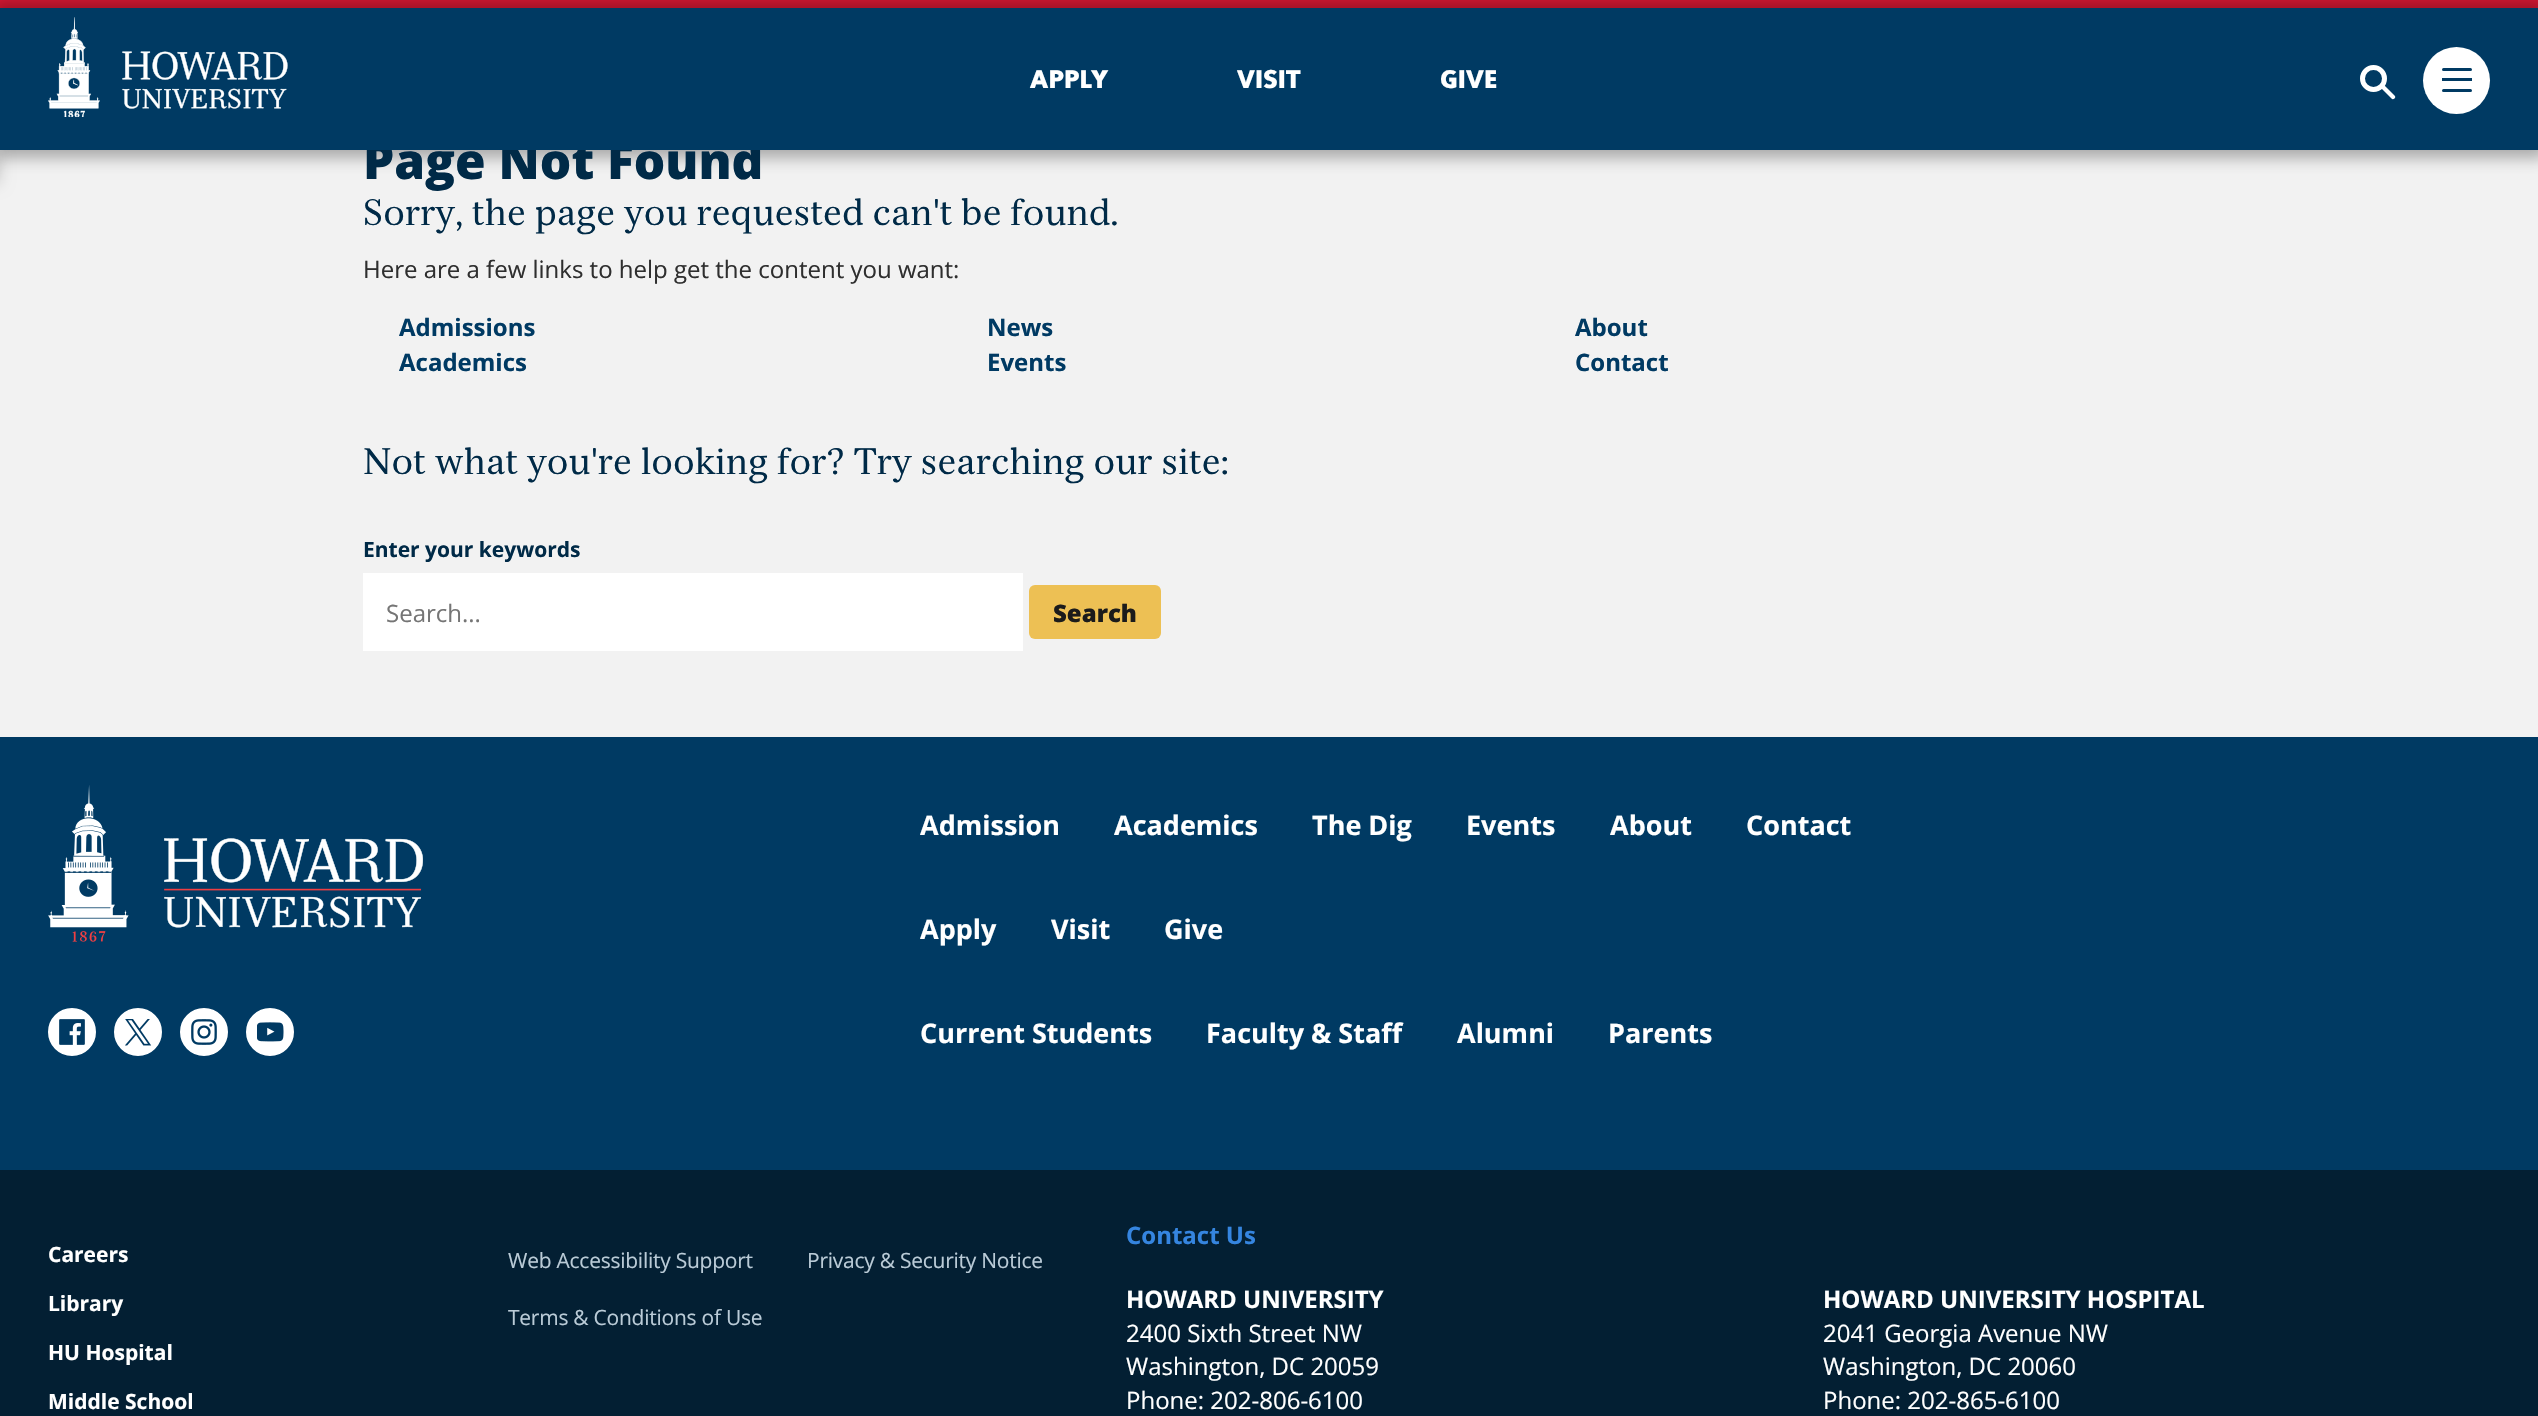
static SkFont makeFont(const char* family, int weight, float size, bool italic = false) {
  SkFontStyle style(weight, SkFontStyle::kNormal_Width,
    italic ? SkFontStyle::kItalic_Slant : SkFontStyle::kUpright_Slant);
  SkFont result(fontMgr->matchFamilyStyle(family, style), size);
  result.setSubpixel(true);
  return result;
}

static void text(SkCanvas* c, const char* s, float x, float y, const SkFont& font, SkColor color) {
  SkPaint ink(SkColor4f::FromColor(color));
  ink.setAntiAlias(true);
  c->drawString(s, x, y, font, ink);
}

static void spacedText(SkCanvas* c, const char* s, float x, float y, const SkFont& font, const SkPaint& ink, float letter, float word) {
  std::vector<SkGlyphID> glyphs(font.countText(s, strlen(s), SkTextEncoding::kUTF8));
  std::vector<float> xs(glyphs.size());
  font.textToGlyphs(s, strlen(s), SkTextEncoding::kUTF8, glyphs);
  font.getXPos(glyphs, xs, x);
  float extra = 0;
  for (size_t i = 0; i < glyphs.size(); i++) {
    xs[i] += extra;
    extra += letter + word * (glyphs[i] == font.unicharToGlyph(' '));
  }
  c->drawTextBlob(SkTextBlob::MakeFromPosHGlyphs(glyphs, xs, y, font), 0, 0, ink);
}

static void box(SkCanvas* c, float l, float t, float r, float b, SkColor color) {
  SkPaint ink(SkColor4f::FromColor(color));
  ink.setAntiAlias(true);
  c->drawRect(SkRect::MakeLTRB(l, t, r, b), ink);
}

static void roundBox(SkCanvas* c, float l, float t, float r, float b, float radius, SkColor color) {
  SkPaint ink(SkColor4f::FromColor(color));
  ink.setAntiAlias(true);
  c->drawRoundRect(SkRect::MakeLTRB(l, t, r, b), radius, radius, ink);
}

static void picture(SkCanvas* c, const char* path, float l, float t, float r, float b) {
  auto image = SkImages::DeferredFromEncodedData(SkData::MakeFromFileName(path));
  c->drawImageRect(image, SkRect::MakeLTRB(l, t, r, b), SkSamplingOptions());
}

void draw(SkCanvas* c) {
  SkPaint paint;
  paint.setAntiAlias(true);
  c->clear(0xfff2f2f2);
  box(c, 0, 0, 2538, 8, 0xffe51937);
  paint.setColor(0x4d000000);
  paint.setMaskFilter(SkMaskFilter::MakeBlur(kNormal_SkBlurStyle, 7.5f));
  c->drawRect(SkRect::MakeLTRB(-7, 0, 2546, 158), paint);
  paint.setMaskFilter(nullptr);
  paint.setColor(0x33000000);
  paint.setMaskFilter(SkMaskFilter::MakeBlur(kNormal_SkBlurStyle, 7.5f));
  c->drawRect(SkRect::MakeLTRB(-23, 153, -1, 183), paint);
  paint.setMaskFilter(nullptr);
  SkFont face1 = makeFont("Open Sans", 800, 49.5f);
  text(c, "Page Not Found", 363, 179, face1, 0xff002a47);
  box(c, 0, 8, 2538, 150, 0xff003a63);
  picture(c, "img_01.png", 48, 17, 288, 117);
  paint.setColor(0xffffffff);
  c->drawPath(SkPathBuilder().moveTo(2372, 73).lineTo(2394.5f, 95.5f).cubicTo(2395.5f, 96.5f, 2395.5f, 97.5f, 2394.5f, 98.5f).cubicTo(2393.5f, 99.5f, 2392, 99.5f, 2391.5f, 98.5f).lineTo(2369, 76).cubicTo(2368, 75, 2368, 74, 2369, 73).cubicTo(2369.5f, 72, 2371, 72, 2372, 73).close().detach(), paint);
  paint.setColor(0xff003a63);
  c->drawCircle(2373.5f, 78.5f, 11, paint);
  paint.setStyle(SkPaint::kStroke_Style);
  paint.setStrokeWidth(5);
  paint.setColor(0xffffffff);
  c->drawCircle(2373.5f, 78.5f, 11, paint);
  paint.setStyle(SkPaint::kFill_Style);
  c->drawCircle(2456.5f, 80.5f, 33.5f, paint);
  box(c, 2442, 78, 2472, 81, 0xff003a63);
  roundBox(c, 2442, 68, 2472, 71, 1.5f, 0xff003a63);
  roundBox(c, 2442, 89, 2472, 92, 1.5f, 0xff003a63);
  SkFont face2 = makeFont("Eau", 900, 24);
  text(c, "APPLY", 1030, 88, face2, 0xffffffff);
  text(c, "VISIT", 1237, 88, face2, 0xffffffff);
  text(c, "GIVE", 1440, 88, face2, 0xffffffff);
  SkFont face3 = makeFont("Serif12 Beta", 400, 36);
  text(c, "Sorry, the page you requested can't be found.", 363, 225, face3, 0xff002a47);
  SkFont face4 = makeFont("Open Sans", 400, 24);
  text(c, "Here are a few links to help get the content you want:", 363, 278, face4, 0xff2f2f2f);
  SkFont face5 = makeFont("Open Sans", 700, 24);
  text(c, "Admissions", 399, 336, face5, 0xff003a63);
  text(c, "News", 987, 336, face5, 0xff003a63);
  text(c, "About", 1575, 336, face5, 0xff003a63);
  text(c, "Academics", 399, 371, face5, 0xff003a63);
  text(c, "Events", 987, 371, face5, 0xff003a63);
  text(c, "Contact", 1575, 371, face5, 0xff003a63);
  text(c, "Not what you're looking for? Try searching our site:", 363, 474, face3, 0xff002a47);
  SkFont face6 = makeFont("Open Sans", 700, 21);
  text(c, "Enter your keywords", 363, 557, face6, 0xff002a47);
  box(c, 363, 573, 1023, 651, 0xffffffff);
  text(c, "Search...", 386, 622, face4, 0xff757575);
  roundBox(c, 1029, 585, 1161, 639, 6, 0xffedc054);
  SkFont face7 = makeFont("Open Sans", 800, 24);
  text(c, "Search", 1053, 622, face7, 0xff1b1b1b);
  box(c, 0, 737, 2538, 1170, 0xff003a63);
  picture(c, "img_02.png", 48, 785, 423, 942);
  c->drawCircle(72, 1032, 23, paint);
  paint.setStyle(SkPaint::kStroke_Style);
  paint.setStrokeWidth(2);
  c->drawCircle(72, 1032, 23, paint);
  picture(c, "img_03.png", 59, 1019, 85, 1045);
  paint.setStyle(SkPaint::kFill_Style);
  c->drawCircle(138, 1032, 23, paint);
  paint.setStyle(SkPaint::kStroke_Style);
  c->drawCircle(138, 1032, 23, paint);
  picture(c, "img_04.png", 125, 1019, 152, 1046);
  paint.setStyle(SkPaint::kFill_Style);
  c->drawCircle(204, 1032, 23, paint);
  paint.setStyle(SkPaint::kStroke_Style);
  c->drawCircle(204, 1032, 23, paint);
  picture(c, "img_05.png", 191, 1019, 217, 1045);
  paint.setStyle(SkPaint::kFill_Style);
  c->drawCircle(270, 1032, 23, paint);
  paint.setStyle(SkPaint::kStroke_Style);
  c->drawCircle(270, 1032, 23, paint);
  picture(c, "img_06.png", 257, 1022, 284, 1042);
  SkFont face8 = makeFont("Open Sans", 700, 27);
  text(c, "Admission", 920, 835, face8, 0xffffffff);
  text(c, "Academics", 1114, 835, face8, 0xffffffff);
  text(c, "The Dig", 1312, 835, face8, 0xffffffff);
  text(c, "Events", 1466, 835, face8, 0xffffffff);
  text(c, "About", 1610, 835, face8, 0xffffffff);
  text(c, "Contact", 1746, 835, face8, 0xffffffff);
  text(c, "Apply", 920, 939, face8, 0xffffffff);
  text(c, "Visit", 1051, 939, face8, 0xffffffff);
  text(c, "Give", 1164, 939, face8, 0xffffffff);
  text(c, "Current Students", 920, 1043, face8, 0xffffffff);
  text(c, "Faculty & Staff", 1206, 1043, face8, 0xffffffff);
  text(c, "Alumni", 1457, 1043, face8, 0xffffffff);
  text(c, "Parents", 1608, 1043, face8, 0xffffffff);
  box(c, 0, 1170, 2538, 1416, 0xff031f33);
  text(c, "Careers", 48, 1262, face6, 0xffffffff);
  text(c, "Library", 48, 1311, face6, 0xffffffff);
  text(c, "HU Hospital", 48, 1360, face6, 0xffffffff);
  text(c, "Middle School", 48, 1409, face6, 0xffffffff);
  SkFont face9 = makeFont("Open Sans", 400, 21);
  paint.setStyle(SkPaint::kFill_Style);
  paint.setColor(0xffbacbd7);
  spacedText(c, "Web Accessibility Support", 508, 1268, face9, paint, -0.25f, 0);
  spacedText(c, "Privacy & Security Notice", 807, 1268, face9, paint, -0.25f, 0);
  spacedText(c, "Terms & Conditions of Use", 508, 1325, face9, paint, -0.25f, 0);
  text(c, "Contact Us", 1126, 1244, face5, 0xff3585e0);
  text(c, "HOWARD UNIVERSITY", 1126, 1308, face5, 0xffffffff);
  text(c, "2400 Sixth Street NW", 1126, 1342, face4, 0xffffffff);
  text(c, "Washington, DC 20059", 1126, 1375, face4, 0xffffffff);
  text(c, "Phone: 202-806-6100", 1126, 1409, face4, 0xffffffff);
  text(c, "HOWARD UNIVERSITY HOSPITAL", 1823, 1308, face5, 0xffffffff);
  text(c, "2041 Georgia Avenue NW", 1823, 1342, face4, 0xffffffff);
  text(c, "Washington, DC 20060", 1823, 1375, face4, 0xffffffff);
  text(c, "Phone: 202-865-6100", 1823, 1409, face4, 0xffffffff);
}
